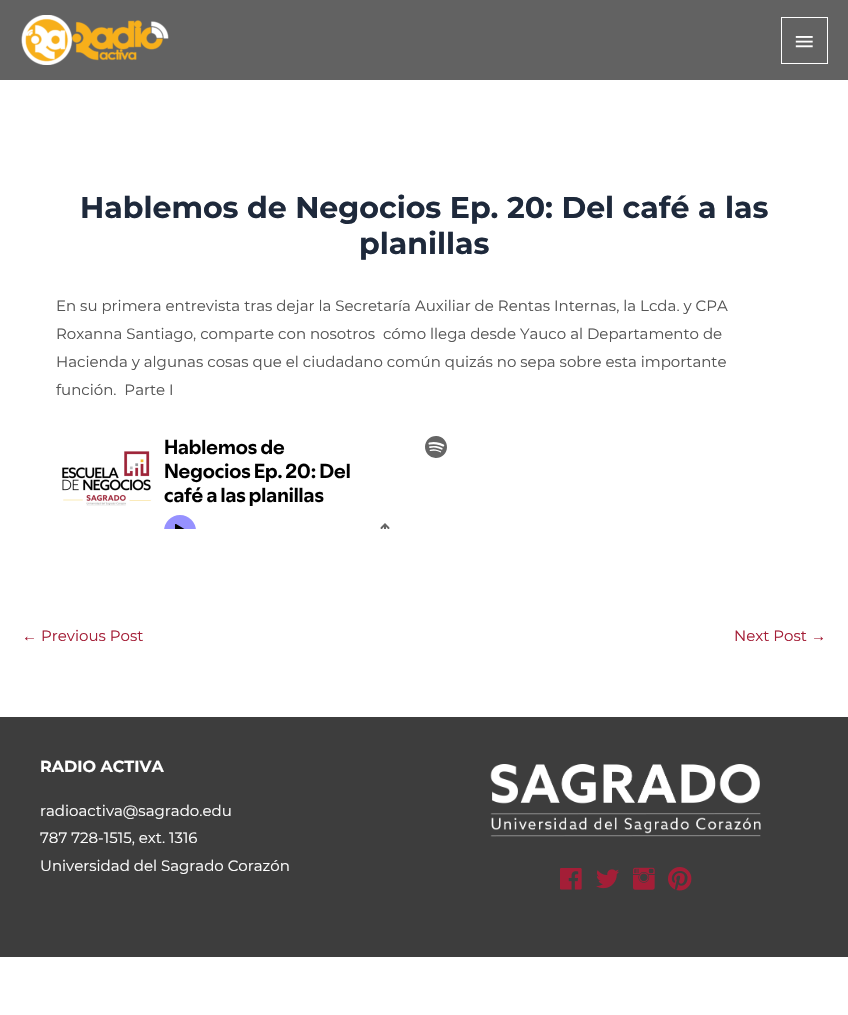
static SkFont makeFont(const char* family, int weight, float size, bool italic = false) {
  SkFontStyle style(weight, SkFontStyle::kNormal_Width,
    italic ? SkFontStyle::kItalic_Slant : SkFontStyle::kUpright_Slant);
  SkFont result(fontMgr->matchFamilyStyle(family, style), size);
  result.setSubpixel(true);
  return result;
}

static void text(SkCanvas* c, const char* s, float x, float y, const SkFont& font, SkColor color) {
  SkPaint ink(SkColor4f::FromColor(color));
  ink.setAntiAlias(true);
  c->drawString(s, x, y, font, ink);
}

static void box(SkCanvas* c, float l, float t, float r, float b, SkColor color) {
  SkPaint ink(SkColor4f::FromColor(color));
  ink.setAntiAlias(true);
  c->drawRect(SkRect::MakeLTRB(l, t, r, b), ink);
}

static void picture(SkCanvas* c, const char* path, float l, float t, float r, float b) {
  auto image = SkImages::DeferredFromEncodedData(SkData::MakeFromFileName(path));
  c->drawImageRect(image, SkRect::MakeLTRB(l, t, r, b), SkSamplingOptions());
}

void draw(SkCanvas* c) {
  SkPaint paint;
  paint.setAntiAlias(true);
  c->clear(0xffffffff);
  box(c, 0, 0, 848, 80, 0xff626262);
  picture(c, "img_01.png", 21, 15, 169, 65);
  paint.setStyle(SkPaint::kStroke_Style);
  paint.setStrokeWidth(1);
  paint.setColor(0xffffffff);
  c->drawRect(SkRect::MakeLTRB(781.5f, 17.5f, 827.5f, 63.5f), paint);
  picture(c, "img_02.png", 795, 36, 813, 48);
  SkFont face1 = makeFont("Montserrat", 700, 30);
  text(c, "Hablemos de Negocios Ep. 20: Del café a las", 80, 218, face1, 0xff1e293b);
  text(c, "planillas", 359, 254, face1, 0xff1e293b);
  SkFont face2 = makeFont("Montserrat", 400, 15);
  text(c, "En su primera entrevista tras dejar la Secretaría Auxiliar de Rentas Internas, la Lcda. y CPA", 56, 311, face2, 0xff555555);
  text(c, "Roxanna Santiago, comparte con nosotros  cómo llega desde Yauco al Departamento de", 56, 339, face2, 0xff555555);
  text(c, "Hacienda y algunas cosas que el ciudadano común quizás no sepa sobre esta importante", 56, 367, face2, 0xff555555);
  text(c, "función.  Parte I", 56, 395, face2, 0xff555555);
  picture(c, "img_03.png", 62, 436, 447, 529);
  SkFont face3 = makeFont("Liberation Sans", 400, 15);
  text(c, "←", 22, 641, face3, 0xffa41e37);
  text(c, "Previous Post", 41, 641, face2, 0xffa41e37);
  text(c, "Next Post", 734, 641, face2, 0xffa41e37);
  text(c, "→", 811, 641, face3, 0xffa41e37);
  box(c, 0, 717, 848, 957, 0xff3d3d3d);
  SkFont face4 = makeFont("Montserrat", 700, 16);
  text(c, "RADIO ACTIVA", 40, 772, face4, 0xffffffff);
  text(c, "radioactiva@sagrado.edu", 40, 816, face2, 0xffffffff);
  text(c, "787 728-1515, ext. 1316", 40, 843, face2, 0xffffffff);
  text(c, "Universidad del Sagrado Corazón", 40, 871, face2, 0xffffffff);
  picture(c, "img_04.png", 490, 764, 761, 837);
  picture(c, "img_05.png", 560, 868, 582, 890);
  picture(c, "img_06.png", 596, 869, 619, 889);
  picture(c, "img_07.png", 633, 867, 655, 890);
  picture(c, "img_08.png", 668, 867, 692, 891);
}
